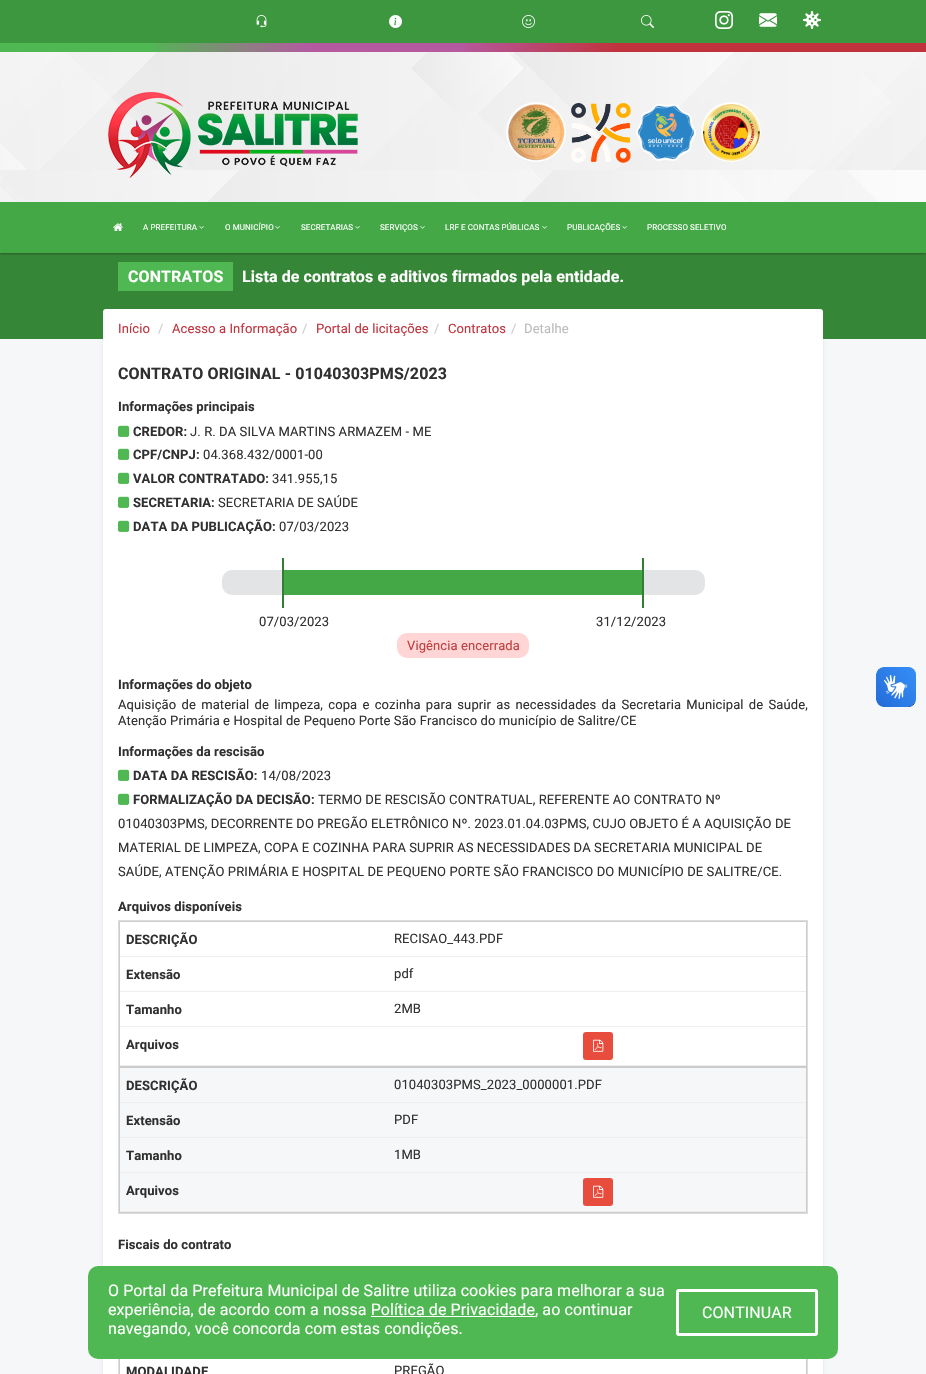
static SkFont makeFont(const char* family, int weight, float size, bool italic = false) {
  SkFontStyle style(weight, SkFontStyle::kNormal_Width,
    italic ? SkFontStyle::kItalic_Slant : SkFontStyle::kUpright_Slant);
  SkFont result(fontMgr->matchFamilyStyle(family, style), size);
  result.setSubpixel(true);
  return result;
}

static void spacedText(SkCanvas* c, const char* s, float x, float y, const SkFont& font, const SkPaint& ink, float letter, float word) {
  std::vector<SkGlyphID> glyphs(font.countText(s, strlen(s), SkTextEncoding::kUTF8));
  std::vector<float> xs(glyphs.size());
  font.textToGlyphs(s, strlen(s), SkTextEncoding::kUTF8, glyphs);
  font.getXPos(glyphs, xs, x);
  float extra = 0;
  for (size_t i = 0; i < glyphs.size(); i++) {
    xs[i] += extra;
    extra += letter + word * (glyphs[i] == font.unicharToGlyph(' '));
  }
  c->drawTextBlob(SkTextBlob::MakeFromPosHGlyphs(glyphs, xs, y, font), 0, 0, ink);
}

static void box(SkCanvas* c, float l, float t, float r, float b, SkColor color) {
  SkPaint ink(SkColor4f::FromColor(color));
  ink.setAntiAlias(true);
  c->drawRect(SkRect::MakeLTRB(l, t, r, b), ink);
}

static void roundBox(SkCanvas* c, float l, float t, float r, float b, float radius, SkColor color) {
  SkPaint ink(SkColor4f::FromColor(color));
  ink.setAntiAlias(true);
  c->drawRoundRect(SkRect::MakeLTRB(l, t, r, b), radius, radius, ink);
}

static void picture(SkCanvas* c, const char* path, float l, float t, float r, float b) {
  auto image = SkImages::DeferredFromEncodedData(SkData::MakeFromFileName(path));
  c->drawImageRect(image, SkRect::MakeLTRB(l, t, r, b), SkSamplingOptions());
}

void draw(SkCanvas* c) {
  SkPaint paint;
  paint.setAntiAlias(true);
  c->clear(0xfff6f7f8);
  paint.setColor(0x17030047);
  paint.setMaskFilter(SkMaskFilter::MakeBlur(kNormal_SkBlurStyle, 1.5f));
  c->drawRect(SkRect::MakeLTRB(103, 310, 823, 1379), paint);
  paint.setMaskFilter(nullptr);
  box(c, 0, 253, 926, 339, 0xff368638);
  paint.setColor(0x4d000000);
  paint.setMaskFilter(SkMaskFilter::MakeBlur(kNormal_SkBlurStyle, 1));
  c->drawRect(SkRect::MakeLTRB(0, 1, 926, 254), paint);
  paint.setMaskFilter(nullptr);
  picture(c, "img_01.png", 0, 52, 926, 202);
  box(c, 0, 0, 926, 43, 0xff3d973f);
  picture(c, "img_02.png", 256, 15, 267, 28);
  picture(c, "img_03.png", 389, 15, 402, 28);
  picture(c, "img_04.png", 522, 15, 535, 28);
  picture(c, "img_05.png", 641, 15, 654, 28);
  picture(c, "img_06.png", 715, 11, 733, 29);
  picture(c, "img_07.png", 759, 13, 777, 27);
  picture(c, "img_08.png", 803, 11, 821, 29);
  box(c, 0, 43, 154, 52, 0xff4fb852);
  picture(c, "img_09.png", 154, 43, 309, 52);
  box(c, 309, 43, 463, 52, 0xffb55aa1);
  picture(c, "img_10.png", 463, 43, 617, 52);
  box(c, 617, 43, 926, 52, 0xffc0333d);
  picture(c, "img_11.png", 108, 92, 358, 178);
  picture(c, "img_12.png", 506, 102, 566, 162);
  picture(c, "img_13.png", 571, 102, 631, 163);
  picture(c, "img_14.png", 636, 104, 696, 161);
  picture(c, "img_15.png", 701, 102, 761, 162);
  box(c, 0, 202, 926, 253, 0xff44a846);
  picture(c, "img_16.png", 113, 223, 123, 231);
  SkFont face1 = makeFont("Roboto", 400, 8);
  paint.setColor(0xffffffff);
  spacedText(c, "A PREFEITURA", 143, 230, face1, paint, 0.1f, 0);
  picture(c, "img_17.png", 199, 226, 204, 229);
  spacedText(c, "O MUNICÍPIO", 225, 230, face1, paint, 0.1f, 0);
  picture(c, "img_17.png", 275, 226, 280, 229);
  spacedText(c, "SECRETARIAS", 301, 230, face1, paint, 0.1f, 0);
  picture(c, "img_17.png", 355, 226, 360, 229);
  spacedText(c, "SERVIÇOS", 380, 230, face1, paint, 0.1f, 0);
  picture(c, "img_17.png", 420, 226, 425, 229);
  spacedText(c, "LRF E CONTAS PÚBLICAS", 445, 230, face1, paint, 0.1f, 0);
  picture(c, "img_17.png", 542, 226, 547, 229);
  spacedText(c, "PUBLICAÇÕES", 567, 230, face1, paint, 0.1f, 0);
  picture(c, "img_17.png", 622, 226, 627, 229);
  spacedText(c, "PROCESSO SELETIVO", 647, 230, face1, paint, 0.1f, 0);
  box(c, 118, 262, 233, 291, 0xff4fb852);
  SkFont face2 = makeFont("Roboto", 700, 16);
  spacedText(c, "CONTRATOS", 128, 282, face2, paint, 0.1f, 0);
  spacedText(c, "Lista de contratos e aditivos firmados pela entidade.", 242, 282, face2, paint, 0.1f, 0);
  box(c, 103, 346, 823, 1374, 0xffffffff);
  roundBox(c, 103, 309, 823, 349, 3, 0xffffffff);
  SkFont face3 = makeFont("Roboto", 400, 13);
  paint.setColor(0xffc0333d);
  spacedText(c, "Início", 118, 333, face3, paint, 0.1f, 0);
  paint.setColor(0xffcccccc);
  spacedText(c, "/", 158, 333, face3, paint, 0.1f, 0);
  paint.setColor(0xffc0333d);
  spacedText(c, "Acesso a Informação", 172, 333, face3, paint, 0.1f, 0);
  paint.setColor(0xffcccccc);
  spacedText(c, "/", 302, 333, face3, paint, 0.1f, 0);
  paint.setColor(0xffc0333d);
  spacedText(c, "Portal de licitações", 316, 333, face3, paint, 0.1f, 0);
  paint.setColor(0xffcccccc);
  spacedText(c, "/", 434, 333, face3, paint, 0.1f, 0);
  paint.setColor(0xffc0333d);
  spacedText(c, "Contratos", 448, 333, face3, paint, 0.1f, 0);
  paint.setColor(0xffcccccc);
  spacedText(c, "/", 511, 333, face3, paint, 0.1f, 0);
  paint.setColor(0xffbbbbbb);
  spacedText(c, "Detalhe", 524, 333, face3, paint, 0.1f, 0);
  paint.setColor(0xff303030);
  spacedText(c, "CONTRATO ORIGINAL - 01040303PMS/2023", 118, 379, face2, paint, 0.1f, 0);
  SkFont face4 = makeFont("Roboto", 700, 13);
  spacedText(c, "Informações principais", 118, 411, face4, paint, 0.1f, 0);
  picture(c, "img_18.png", 118, 425, 130, 437);
  spacedText(c, "CREDOR:", 133, 436, face4, paint, 0.1f, 0);
  spacedText(c, "J. R. DA SILVA MARTINS ARMAZEM - ME", 190, 436, face3, paint, 0.1f, 0);
  picture(c, "img_18.png", 118, 448, 130, 460);
  spacedText(c, "CPF/CNPJ:", 133, 459, face4, paint, 0.1f, 0);
  spacedText(c, "04.368.432/0001-00", 203, 459, face3, paint, 0.1f, 0);
  picture(c, "img_18.png", 118, 472, 130, 484);
  spacedText(c, "VALOR CONTRATADO:", 133, 483, face4, paint, 0.1f, 0);
  spacedText(c, "341.955,15", 272, 483, face3, paint, 0.1f, 0);
  picture(c, "img_18.png", 118, 496, 130, 508);
  spacedText(c, "SECRETARIA:", 133, 507, face4, paint, 0.1f, 0);
  spacedText(c, "SECRETARIA DE SAÚDE", 218, 507, face3, paint, 0.1f, 0);
  picture(c, "img_18.png", 118, 520, 130, 532);
  spacedText(c, "DATA DA PUBLICAÇÃO:", 133, 531, face4, paint, 0.1f, 0);
  spacedText(c, "07/03/2023", 279, 531, face3, paint, 0.1f, 0);
  roundBox(c, 222, 570, 705, 595, 10, 0xffe3e4e6);
  paint.setColor(0xff44a846);
  c->drawPath(SkPathBuilder().moveTo(282, 570).lineTo(641, 570).cubicTo(642.5f, 570, 644, 571.5f, 644, 573).lineTo(644, 592).cubicTo(644, 593.5f, 642.5f, 595, 641, 595).lineTo(282, 595).close().detach(), paint);
  box(c, 642, 558, 644, 608, 0xff337e35);
  box(c, 282, 558, 284, 608, 0xff337e35);
  paint.setColor(0xff303030);
  spacedText(c, "07/03/2023", 259, 626, face3, paint, 0.1f, 0);
  spacedText(c, "31/12/2023", 596, 626, face3, paint, 0.1f, 0);
  roundBox(c, 397, 633, 529, 658, 10, 0xffffd5d5);
  paint.setColor(0xffbd4141);
  spacedText(c, "Vigência encerrada", 407, 650, face3, paint, 0.1f, 0);
  paint.setColor(0xff303030);
  spacedText(c, "Informações do objeto", 118, 689, face4, paint, 0.1f, 0);
  spacedText(c, "Aquisição de material de limpeza, copa e cozinha para suprir as necessidades da Secretaria Municipal de Saúde,", 118, 709, face3, paint, 0.1f, 1.9f);
  spacedText(c, "Atenção Primária e Hospital de Pequeno Porte São Francisco do município de Salitre/CE", 118, 725, face3, paint, 0.1f, 0);
  spacedText(c, "Informações da rescisão", 118, 756, face4, paint, 0.1f, 0);
  picture(c, "img_18.png", 118, 769, 130, 781);
  spacedText(c, "DATA DA RESCISÃO:", 133, 780, face4, paint, 0.1f, 0);
  spacedText(c, "14/08/2023", 261, 780, face3, paint, 0.1f, 0);
  picture(c, "img_18.png", 118, 793, 130, 805);
  spacedText(c, "FORMALIZAÇÃO DA DECISÃO:", 133, 804, face4, paint, 0.1f, 0);
  spacedText(c, "TERMO DE RESCISÃO CONTRATUAL, REFERENTE AO CONTRATO Nº", 318, 804, face3, paint, 0.1f, 0);
  spacedText(c, "01040303PMS, DECORRENTE DO PREGÃO ELETRÔNICO Nº. 2023.01.04.03PMS, CUJO OBJETO É A AQUISIÇÃO DE", 118, 828, face3, paint, 0.1f, 0);
  spacedText(c, "MATERIAL DE LIMPEZA, COPA E COZINHA PARA SUPRIR AS NECESSIDADES DA SECRETARIA MUNICIPAL DE", 118, 852, face3, paint, 0.1f, 0);
  spacedText(c, "SAÚDE, ATENÇÃO PRIMÁRIA E HOSPITAL DE PEQUENO PORTE SÃO FRANCISCO DO MUNICÍPIO DE SALITRE/CE.", 118, 876, face3, paint, 0.1f, 0);
  spacedText(c, "Arquivos disponíveis", 118, 911, face4, paint, 0.1f, 0);
  box(c, 118, 920, 808, 921, 0xffdddddd);
  box(c, 807, 920, 808, 1214, 0xffdddddd);
  box(c, 118, 1213, 808, 1214, 0xffdddddd);
  box(c, 118, 920, 119, 1214, 0xffdddddd);
  paint.setStyle(SkPaint::kStroke_Style);
  paint.setStrokeWidth(1);
  paint.setColor(0xffcccccc);
  c->drawRect(SkRect::MakeLTRB(119.5f, 921.5f, 806.5f, 1066.5f), paint);
  box(c, 120, 956, 806, 957, 0xffeeeeee);
  paint.setStyle(SkPaint::kFill_Style);
  paint.setColor(0xff303030);
  spacedText(c, "DESCRIÇÃO", 126, 944, face4, paint, 0.1f, 0);
  spacedText(c, "RECISAO_443.PDF", 394, 943, face3, paint, 0.1f, 0);
  box(c, 120, 991, 806, 992, 0xffeeeeee);
  spacedText(c, "Extensão", 126, 979, face4, paint, 0.1f, 0);
  spacedText(c, "pdf", 394, 978, face3, paint, 0.1f, 0);
  box(c, 120, 1026, 806, 1027, 0xffeeeeee);
  spacedText(c, "Tamanho", 126, 1014, face4, paint, 0.1f, 0);
  spacedText(c, "2MB", 394, 1013, face3, paint, 0.1f, 0);
  box(c, 120, 1065, 806, 1066, 0xffeeeeee);
  spacedText(c, "Arquivos", 126, 1049, face4, paint, 0.1f, 0);
  roundBox(c, 583, 1032, 613, 1060, 3, 0xffe74c3c);
  picture(c, "img_19.png", 593, 1039, 604, 1052);
  box(c, 120, 1068, 806, 1211, 0xfff6f7f8);
  paint.setStyle(SkPaint::kStroke_Style);
  paint.setColor(0xffcccccc);
  c->drawRect(SkRect::MakeLTRB(119.5f, 1067.5f, 806.5f, 1212.5f), paint);
  box(c, 120, 1102, 806, 1103, 0xffeeeeee);
  paint.setStyle(SkPaint::kFill_Style);
  paint.setColor(0xff303030);
  spacedText(c, "DESCRIÇÃO", 126, 1090, face4, paint, 0.1f, 0);
  spacedText(c, "01040303PMS_2023_0000001.PDF", 394, 1089, face3, paint, 0.1f, 0);
  box(c, 120, 1137, 806, 1138, 0xffeeeeee);
  spacedText(c, "Extensão", 126, 1125, face4, paint, 0.1f, 0);
  spacedText(c, "PDF", 394, 1124, face3, paint, 0.1f, 0);
  box(c, 120, 1172, 806, 1173, 0xffeeeeee);
  spacedText(c, "Tamanho", 126, 1160, face4, paint, 0.1f, 0);
  spacedText(c, "1MB", 394, 1159, face3, paint, 0.1f, 0);
  box(c, 120, 1211, 806, 1212, 0xffeeeeee);
  spacedText(c, "Arquivos", 126, 1195, face4, paint, 0.1f, 0);
  roundBox(c, 583, 1178, 613, 1206, 3, 0xffe74c3c);
  picture(c, "img_19.png", 593, 1185, 604, 1198);
  spacedText(c, "Fiscais do contrato", 118, 1249, face4, paint, 0.1f, 0);
  box(c, 807, 1359, 808, 1374, 0xffdddddd);
  box(c, 118, 1359, 119, 1374, 0xffdddddd);
  paint.setStyle(SkPaint::kStroke_Style);
  paint.setColor(0xffcccccc);
  c->drawRect(SkRect::MakeLTRB(119.5f, 1318.5f, 806.5f, 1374.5f), paint);
  paint.setStyle(SkPaint::kFill_Style);
  paint.setColor(0xff303030);
  spacedText(c, "MODALIDADE", 126, 1376, face4, paint, 0.1f, 0);
  spacedText(c, "PREGÃO", 394, 1375, face3, paint, 0.1f, 0);
  picture(c, "img_20.png", 876, 667, 916, 707);
  picture(c, "img_21.png", 876, 667, 916, 707);
  roundBox(c, 88, 1266, 838, 1359, 10, 0xff4fb852);
  SkFont face5 = makeFont("Roboto", 400, 16);
  paint.setColor(0xffffffff);
  spacedText(c, "O Portal da Prefeitura Municipal de Salitre utiliza cookies para melhorar a sua", 108, 1296, face5, paint, 0.1f, 0);
  spacedText(c, "experiência, de acordo com a nossa Política de Privacidade, ao continuar", 108, 1315, face5, paint, 0.1f, 0);
  box(c, 371, 1316, 535, 1317, 0xffffffff);
  spacedText(c, "navegando, você concorda com estas condições.", 108, 1334, face5, paint, 0.1f, 0);
  paint.setStyle(SkPaint::kStroke_Style);
  paint.setStrokeWidth(3);
  c->drawRoundRect(SkRect::MakeLTRB(677.5f, 1290.5f, 816.5f, 1334.5f), 1.5f, 1.5f, paint);
  paint.setStyle(SkPaint::kFill_Style);
  spacedText(c, "CONTINUAR", 702, 1318, face5, paint, 0.1f, 0);
}
